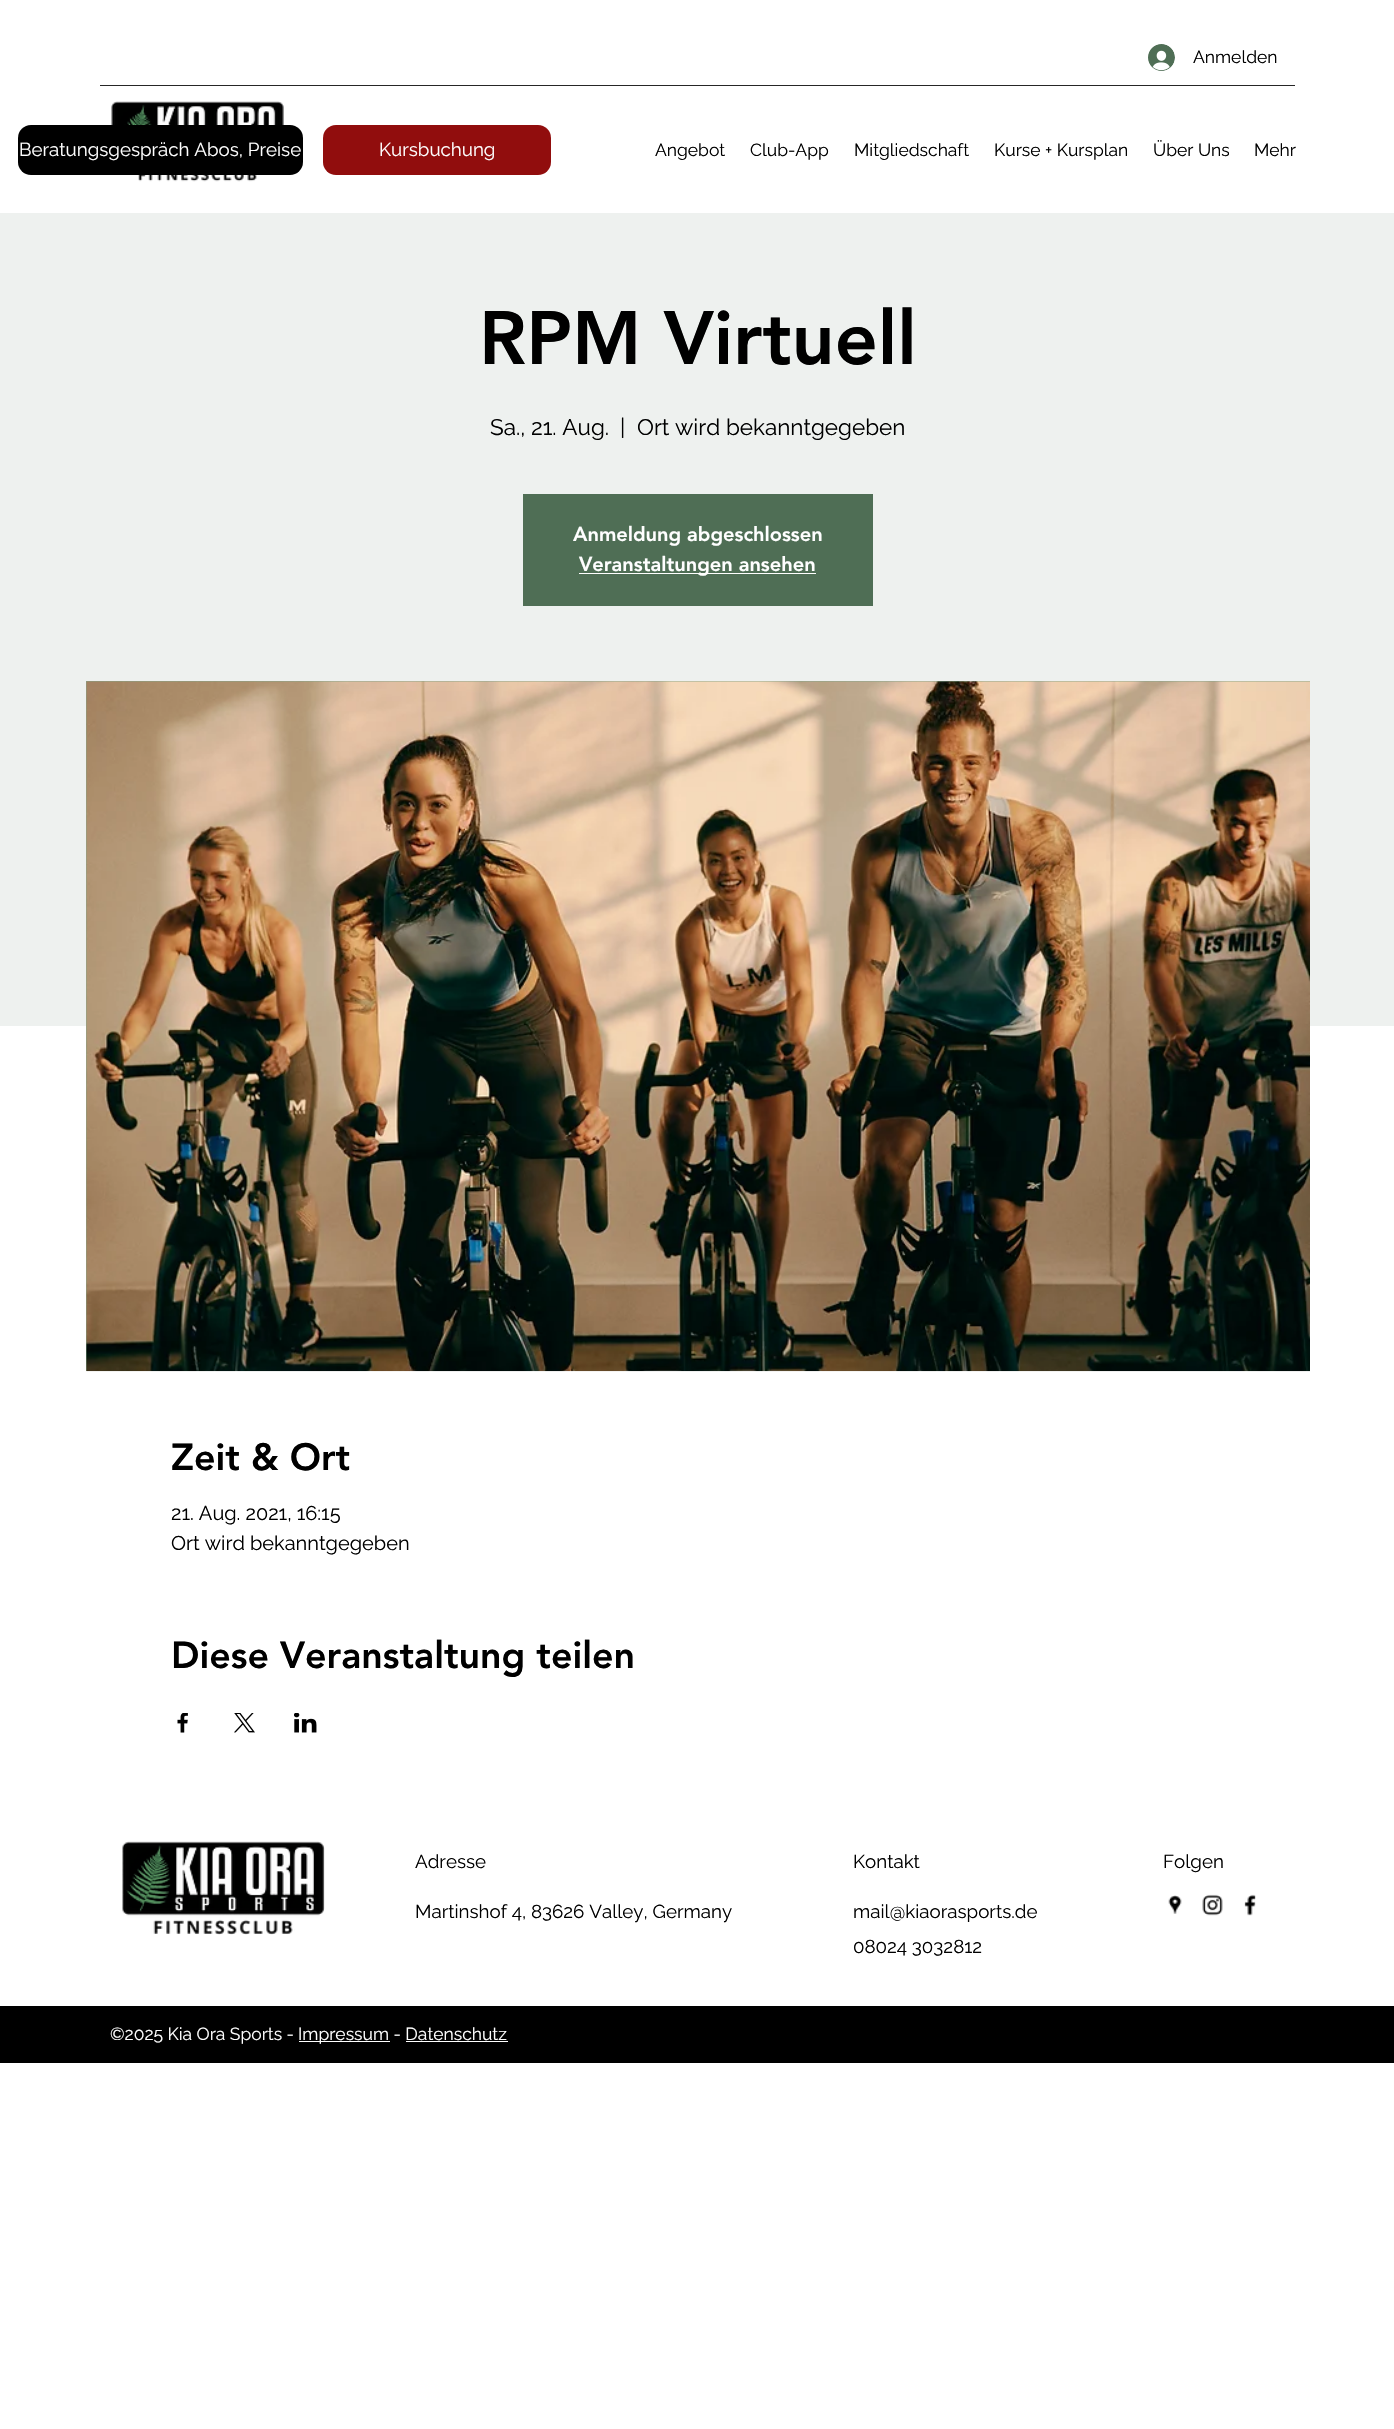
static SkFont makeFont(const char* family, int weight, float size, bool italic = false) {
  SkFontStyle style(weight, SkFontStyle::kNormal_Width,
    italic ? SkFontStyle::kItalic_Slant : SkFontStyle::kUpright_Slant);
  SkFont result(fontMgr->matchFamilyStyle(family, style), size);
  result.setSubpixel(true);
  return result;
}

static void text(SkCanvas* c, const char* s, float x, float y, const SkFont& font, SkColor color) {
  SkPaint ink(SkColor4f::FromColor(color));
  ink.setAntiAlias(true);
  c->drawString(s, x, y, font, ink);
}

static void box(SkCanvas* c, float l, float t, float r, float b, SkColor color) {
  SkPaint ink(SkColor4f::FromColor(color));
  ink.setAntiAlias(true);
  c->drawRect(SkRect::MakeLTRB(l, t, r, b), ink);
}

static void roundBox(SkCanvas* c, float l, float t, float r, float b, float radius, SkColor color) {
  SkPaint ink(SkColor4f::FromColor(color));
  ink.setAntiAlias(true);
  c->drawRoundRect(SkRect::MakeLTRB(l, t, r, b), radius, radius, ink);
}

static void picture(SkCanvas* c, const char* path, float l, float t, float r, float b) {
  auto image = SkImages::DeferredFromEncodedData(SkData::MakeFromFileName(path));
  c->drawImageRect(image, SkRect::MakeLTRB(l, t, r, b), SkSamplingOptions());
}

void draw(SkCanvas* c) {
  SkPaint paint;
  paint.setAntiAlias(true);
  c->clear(0xffffffff);
  picture(c, "img_01.png", 1148, 44, 1175, 71);
  SkFont face1 = makeFont("Raleway", 400, 17.5f);
  text(c, "Anmelden", 1193, 63, face1, 0xff000000);
  box(c, 100, 85, 1295, 86, 0xff262626);
  picture(c, "img_02.png", 111, 101, 284, 182);
  roundBox(c, 18, 125, 303, 175, 13, 0xff000000);
  SkFont face2 = makeFont("Raleway", 400, 18.75f);
  text(c, "Beratungsgespräch Abos, Preise", 19, 156, face2, 0xffffffff);
  roundBox(c, 323, 125, 551, 175, 13, 0xff910d0d);
  text(c, "Kursbuchung", 379, 156, face2, 0xffffffff);
  text(c, "Angebot", 655, 156, face1, 0xff000000);
  text(c, "Club-App", 750, 156, face1, 0xff000000);
  text(c, "Mitgliedschaft", 854, 156, face1, 0xff000000);
  text(c, "Kurse + Kursplan", 994, 156, face1, 0xff000000);
  text(c, "Über Uns", 1153, 156, face1, 0xff000000);
  text(c, "Mehr", 1254, 156, face1, 0xff000000);
  box(c, 0, 213, 1394, 1026, 0xffeef1ef);
  SkFont face3 = makeFont("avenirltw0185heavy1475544", 900, 75);
  text(c, "RPM Virtuell", 479, 364, face3, 0xff000000);
  SkFont face4 = makeFont("Raleway", 400, 22.5f);
  text(c, "Sa., 21. Aug.", 490, 435, face4, 0xff000000);
  text(c, "|", 620, 435, face4, 0xff000000);
  text(c, "Ort wird bekanntgegeben", 637, 435, face4, 0xff000000);
  box(c, 523, 494, 873, 606, 0xff4f6e55);
  SkFont face5 = makeFont("avenirltw0185heavy1475544", 900, 20);
  text(c, "Anmeldung abgeschlossen", 573, 541, face5, 0xffffffff);
  box(c, 579, 573, 816, 574, 0xffffffff);
  text(c, "Veranstaltungen ansehen", 579, 571, face5, 0xffffffff);
  box(c, 86, 681, 1310, 1371, 0xff82a689);
  picture(c, "img_03.png", 86, 681, 1310, 1372);
  SkFont face6 = makeFont("avenirltw0185heavy1475544", 900, 37.5f);
  text(c, "Zeit & Ort", 171, 1470, face6, 0xff000000);
  SkFont face7 = makeFont("Raleway", 400, 20);
  text(c, "21. Aug. 2021, 16:15", 171, 1520, face7, 0xff000000);
  text(c, "Ort wird bekanntgegeben", 171, 1550, face7, 0xff000000);
  text(c, "Diese Veranstaltung teilen", 171, 1668, face6, 0xff000000);
  picture(c, "img_04.png", 177, 1713, 188, 1733);
  picture(c, "img_05.png", 234, 1713, 255, 1733);
  picture(c, "img_06.png", 294, 1713, 317, 1733);
  picture(c, "img_07.png", 122, 1841, 325, 1935);
  text(c, "Adresse", 415, 1868, face2, 0xff000000);
  text(c, "Kontakt", 853, 1868, face2, 0xff000000);
  text(c, "Folgen", 1163, 1868, face2, 0xff000000);
  text(c, "Martinshof 4, 83626 Valley, Germany", 415, 1918, face2, 0xff000000);
  text(c, "mail@kiaorasports.de", 853, 1918, face2, 0xff000000);
  picture(c, "img_08.png", 1168, 1895, 1182, 1914);
  picture(c, "img_09.png", 1202, 1894, 1223, 1916);
  picture(c, "img_10.png", 1244, 1894, 1256, 1916);
  text(c, "08024 3032812", 853, 1953, face2, 0xff000000);
  box(c, 0, 2006, 1394, 2063, 0xff000000);
  text(c, "©2025 Kia Ora Sports -", 110, 2040, face1, 0xffffffff);
  box(c, 299, 2041, 390, 2042, 0xffffffff);
  text(c, "Impressum - Datenschutz", 298, 2040, face1, 0xffffffff);
  box(c, 406, 2041, 508, 2042, 0xffffffff);
}
